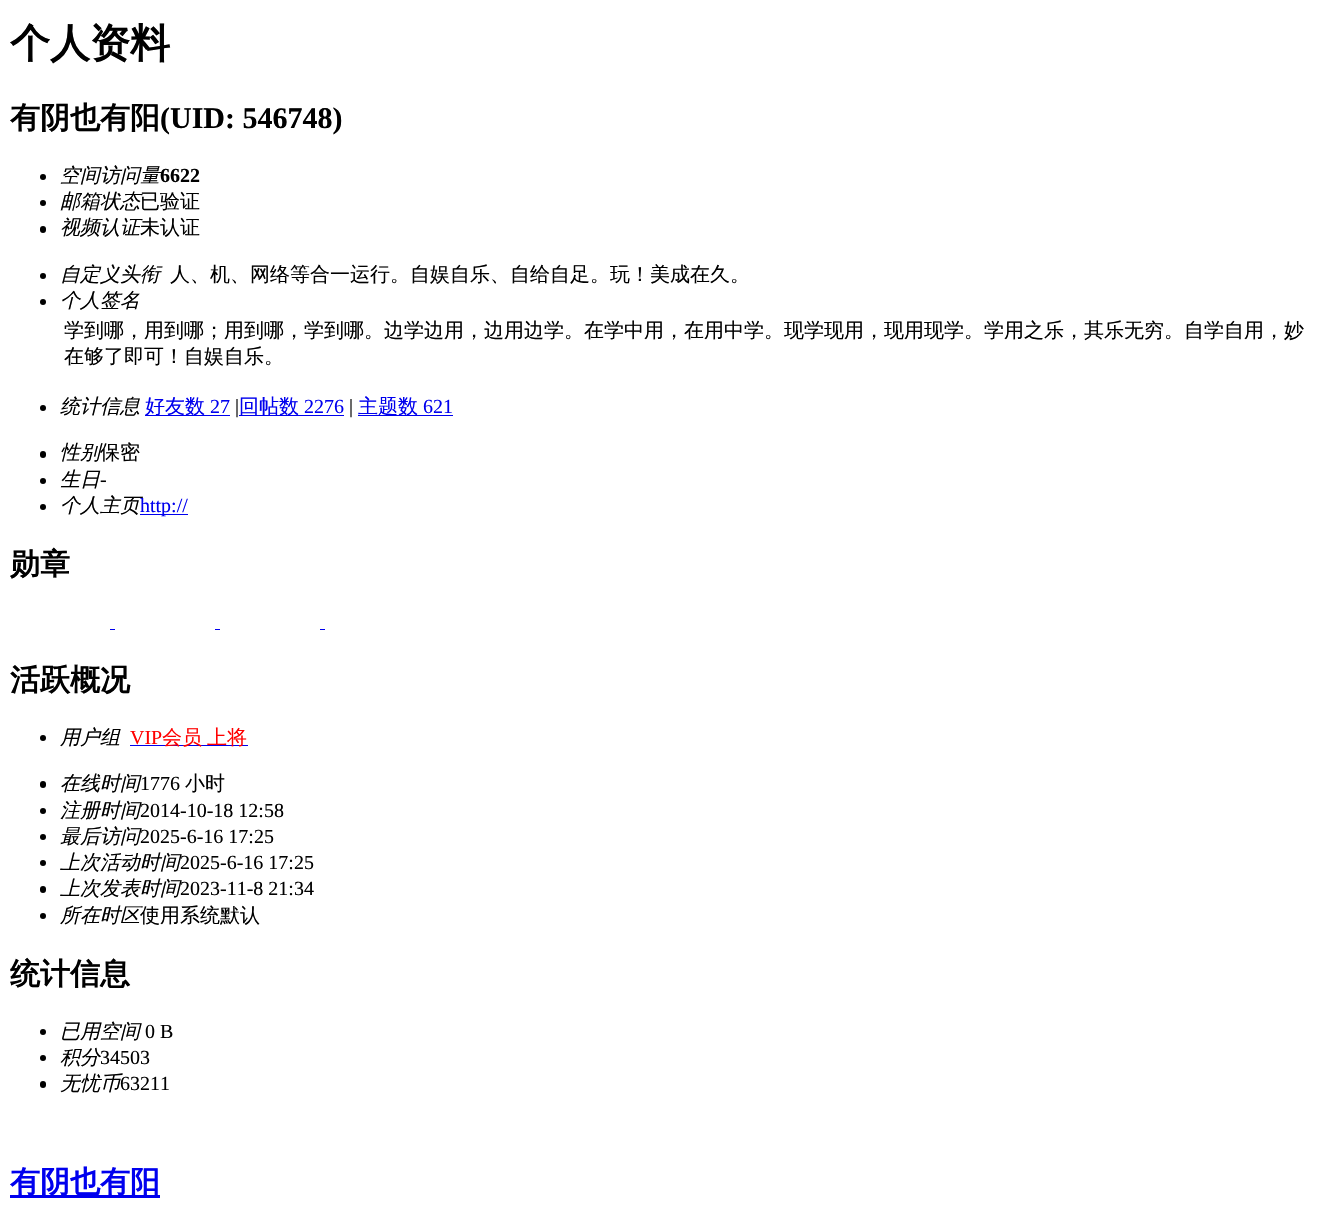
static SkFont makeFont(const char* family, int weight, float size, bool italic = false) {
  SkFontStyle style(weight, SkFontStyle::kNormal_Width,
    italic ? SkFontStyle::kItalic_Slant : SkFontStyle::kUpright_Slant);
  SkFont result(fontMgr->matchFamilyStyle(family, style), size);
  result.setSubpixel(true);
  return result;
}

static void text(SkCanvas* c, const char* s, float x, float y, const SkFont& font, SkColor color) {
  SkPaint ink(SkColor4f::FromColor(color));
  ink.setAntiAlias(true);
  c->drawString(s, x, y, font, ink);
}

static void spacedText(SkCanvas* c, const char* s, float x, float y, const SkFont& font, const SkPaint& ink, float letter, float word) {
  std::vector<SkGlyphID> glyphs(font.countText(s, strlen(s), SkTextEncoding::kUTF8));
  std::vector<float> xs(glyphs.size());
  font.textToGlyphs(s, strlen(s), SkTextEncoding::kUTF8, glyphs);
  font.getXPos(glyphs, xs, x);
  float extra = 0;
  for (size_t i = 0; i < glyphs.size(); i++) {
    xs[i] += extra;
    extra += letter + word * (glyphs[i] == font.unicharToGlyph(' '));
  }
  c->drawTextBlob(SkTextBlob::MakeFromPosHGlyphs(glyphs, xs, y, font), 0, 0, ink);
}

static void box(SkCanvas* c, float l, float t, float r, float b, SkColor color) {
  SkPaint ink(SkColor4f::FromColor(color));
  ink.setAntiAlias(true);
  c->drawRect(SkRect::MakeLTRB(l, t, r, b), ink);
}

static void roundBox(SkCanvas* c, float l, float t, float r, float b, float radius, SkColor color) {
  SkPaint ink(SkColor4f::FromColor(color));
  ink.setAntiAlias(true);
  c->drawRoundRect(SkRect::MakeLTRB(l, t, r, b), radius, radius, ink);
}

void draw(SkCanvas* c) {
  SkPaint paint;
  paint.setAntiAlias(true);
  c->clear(0xffffffff);
  SkFont face1 = makeFont("WenQuanYi Zen Hei", 700, 40);
  text(c, "个人资料", 10, 57, face1, 0xff000000);
  SkFont face2 = makeFont("WenQuanYi Zen Hei", 700, 30);
  text(c, "有阴也有阳", 10, 128, face2, 0xff000000);
  SkFont face3 = makeFont("Liberation Serif", 700, 30);
  text(c, "(UID: 546748)", 160, 128, face3, 0xff000000);
  paint.setColor(0xff000000);
  c->drawCircle(43, 177, 3, paint);
  SkFont face4 = makeFont("WenQuanYi Zen Hei", 500, 20, true);
  text(c, "空间访问量", 60, 182, face4, 0xff000000);
  SkFont face5 = makeFont("Liberation Serif", 700, 20);
  text(c, "6622", 160, 182, face5, 0xff000000);
  c->drawCircle(43, 203, 3, paint);
  text(c, "邮箱状态", 60, 208, face4, 0xff000000);
  SkFont face6 = makeFont("WenQuanYi Zen Hei", 500, 20);
  text(c, "已验证", 140, 208, face6, 0xff000000);
  roundBox(c, 40, 226, 46, 233, 3, 0xff000000);
  text(c, "视频认证", 60, 234, face4, 0xff000000);
  text(c, "未认证", 140, 234, face6, 0xff000000);
  c->drawCircle(43, 276, 3, paint);
  text(c, "自定义头衔", 60, 281, face4, 0xff000000);
  text(c, "人、机、网络等合一运行。自娱自乐、自给自足。玩！美成在久。", 170, 281, face6, 0xff000000);
  c->drawCircle(43, 302, 3, paint);
  text(c, "个人签名", 60, 307, face4, 0xff000000);
  text(c, "学到哪，用到哪；用到哪，学到哪。边学边用，边用边学。在学中用，在用中学。现学现用，现用现学。学用之乐，其乐无穷。自学自用，妙", 64, 337, face6, 0xff000000);
  text(c, "在够了即可！自娱自乐。", 64, 363, face6, 0xff000000);
  c->drawCircle(43, 408, 3, paint);
  text(c, "统计信息", 60, 413, face4, 0xff000000);
  box(c, 145, 415, 230, 416, 0xff0000ee);
  text(c, "好友数", 145, 413, face6, 0xff0000ee);
  SkFont face7 = makeFont("Liberation Serif", 400, 20);
  text(c, "27", 210, 413, face7, 0xff0000ee);
  text(c, "|", 235, 413, face7, 0xff000000);
  box(c, 239, 415, 344, 416, 0xff0000ee);
  text(c, "回帖数", 239, 413, face6, 0xff0000ee);
  text(c, "2276", 304, 413, face7, 0xff0000ee);
  text(c, "|", 349, 413, face7, 0xff000000);
  box(c, 358, 415, 453, 416, 0xff0000ee);
  text(c, "主题数", 358, 413, face6, 0xff0000ee);
  text(c, "621", 423, 413, face7, 0xff0000ee);
  roundBox(c, 40, 451, 46, 458, 3, 0xff000000);
  text(c, "性别", 60, 459, face4, 0xff000000);
  text(c, "保密", 100, 459, face6, 0xff000000);
  c->drawCircle(43, 481, 3, paint);
  text(c, "生日", 60, 486, face4, 0xff000000);
  text(c, "-", 100, 486, face7, 0xff000000);
  c->drawCircle(43, 507, 3, paint);
  text(c, "个人主页", 60, 512, face4, 0xff000000);
  box(c, 140, 514, 188, 515, 0xff0000ee);
  text(c, "http://", 140, 512, face7, 0xff0000ee);
  text(c, "勋章", 10, 574, face2, 0xff000000);
  box(c, 110, 629, 115, 630, 0xff0000ee);
  box(c, 215, 629, 220, 630, 0xff0000ee);
  box(c, 320, 629, 325, 630, 0xff0000ee);
  text(c, "活跃概况", 10, 690, face2, 0xff000000);
  c->drawCircle(43, 738, 3, paint);
  text(c, "用户组", 60, 744, face4, 0xff000000);
  text(c, "VIP", 130, 744, face7, 0xffff0000);
  box(c, 130, 745, 248, 746, 0xff0000ee);
  paint.setColor(0xffff0000);
  spacedText(c, "会员 上将", 162, 744, face6, paint, 0, -1);
  roundBox(c, 40, 781, 46, 788, 3, 0xff000000);
  text(c, "在线时间", 60, 790, face4, 0xff000000);
  text(c, "1776", 140, 790, face7, 0xff000000);
  text(c, "小时", 185, 790, face6, 0xff000000);
  paint.setColor(0xff000000);
  c->drawCircle(43, 811, 3, paint);
  text(c, "注册时间", 60, 817, face4, 0xff000000);
  text(c, "2014-10-18 12:58", 140, 817, face7, 0xff000000);
  c->drawCircle(43, 837, 3, paint);
  text(c, "最后访问", 60, 843, face4, 0xff000000);
  text(c, "2025-6-16 17:25", 140, 843, face7, 0xff000000);
  c->drawCircle(43, 863, 3, paint);
  text(c, "上次活动时间", 60, 869, face4, 0xff000000);
  text(c, "2025-6-16 17:25", 180, 869, face7, 0xff000000);
  roundBox(c, 40, 886, 46, 893, 3, 0xff000000);
  text(c, "上次发表时间", 60, 895, face4, 0xff000000);
  text(c, "2023-11-8 21:34", 180, 895, face7, 0xff000000);
  c->drawCircle(43, 916, 3, paint);
  text(c, "所在时区", 60, 922, face4, 0xff000000);
  text(c, "使用系统默认", 140, 922, face6, 0xff000000);
  text(c, "统计信息", 10, 984, face2, 0xff000000);
  c->drawCircle(43, 1032, 3, paint);
  text(c, "已用空间", 60, 1038, face4, 0xff000000);
  text(c, "0 B", 145, 1038, face7, 0xff000000);
  c->drawCircle(43, 1058, 3, paint);
  text(c, "积分", 60, 1064, face4, 0xff000000);
  text(c, "34503", 100, 1064, face7, 0xff000000);
  roundBox(c, 40, 1081, 46, 1088, 3, 0xff000000);
  text(c, "无忧币", 60, 1090, face4, 0xff000000);
  text(c, "63211", 120, 1090, face7, 0xff000000);
  box(c, 10, 1195, 160, 1198, 0xff0000ee);
  text(c, "有阴也有阳", 10, 1192, face2, 0xff0000ee);
}
